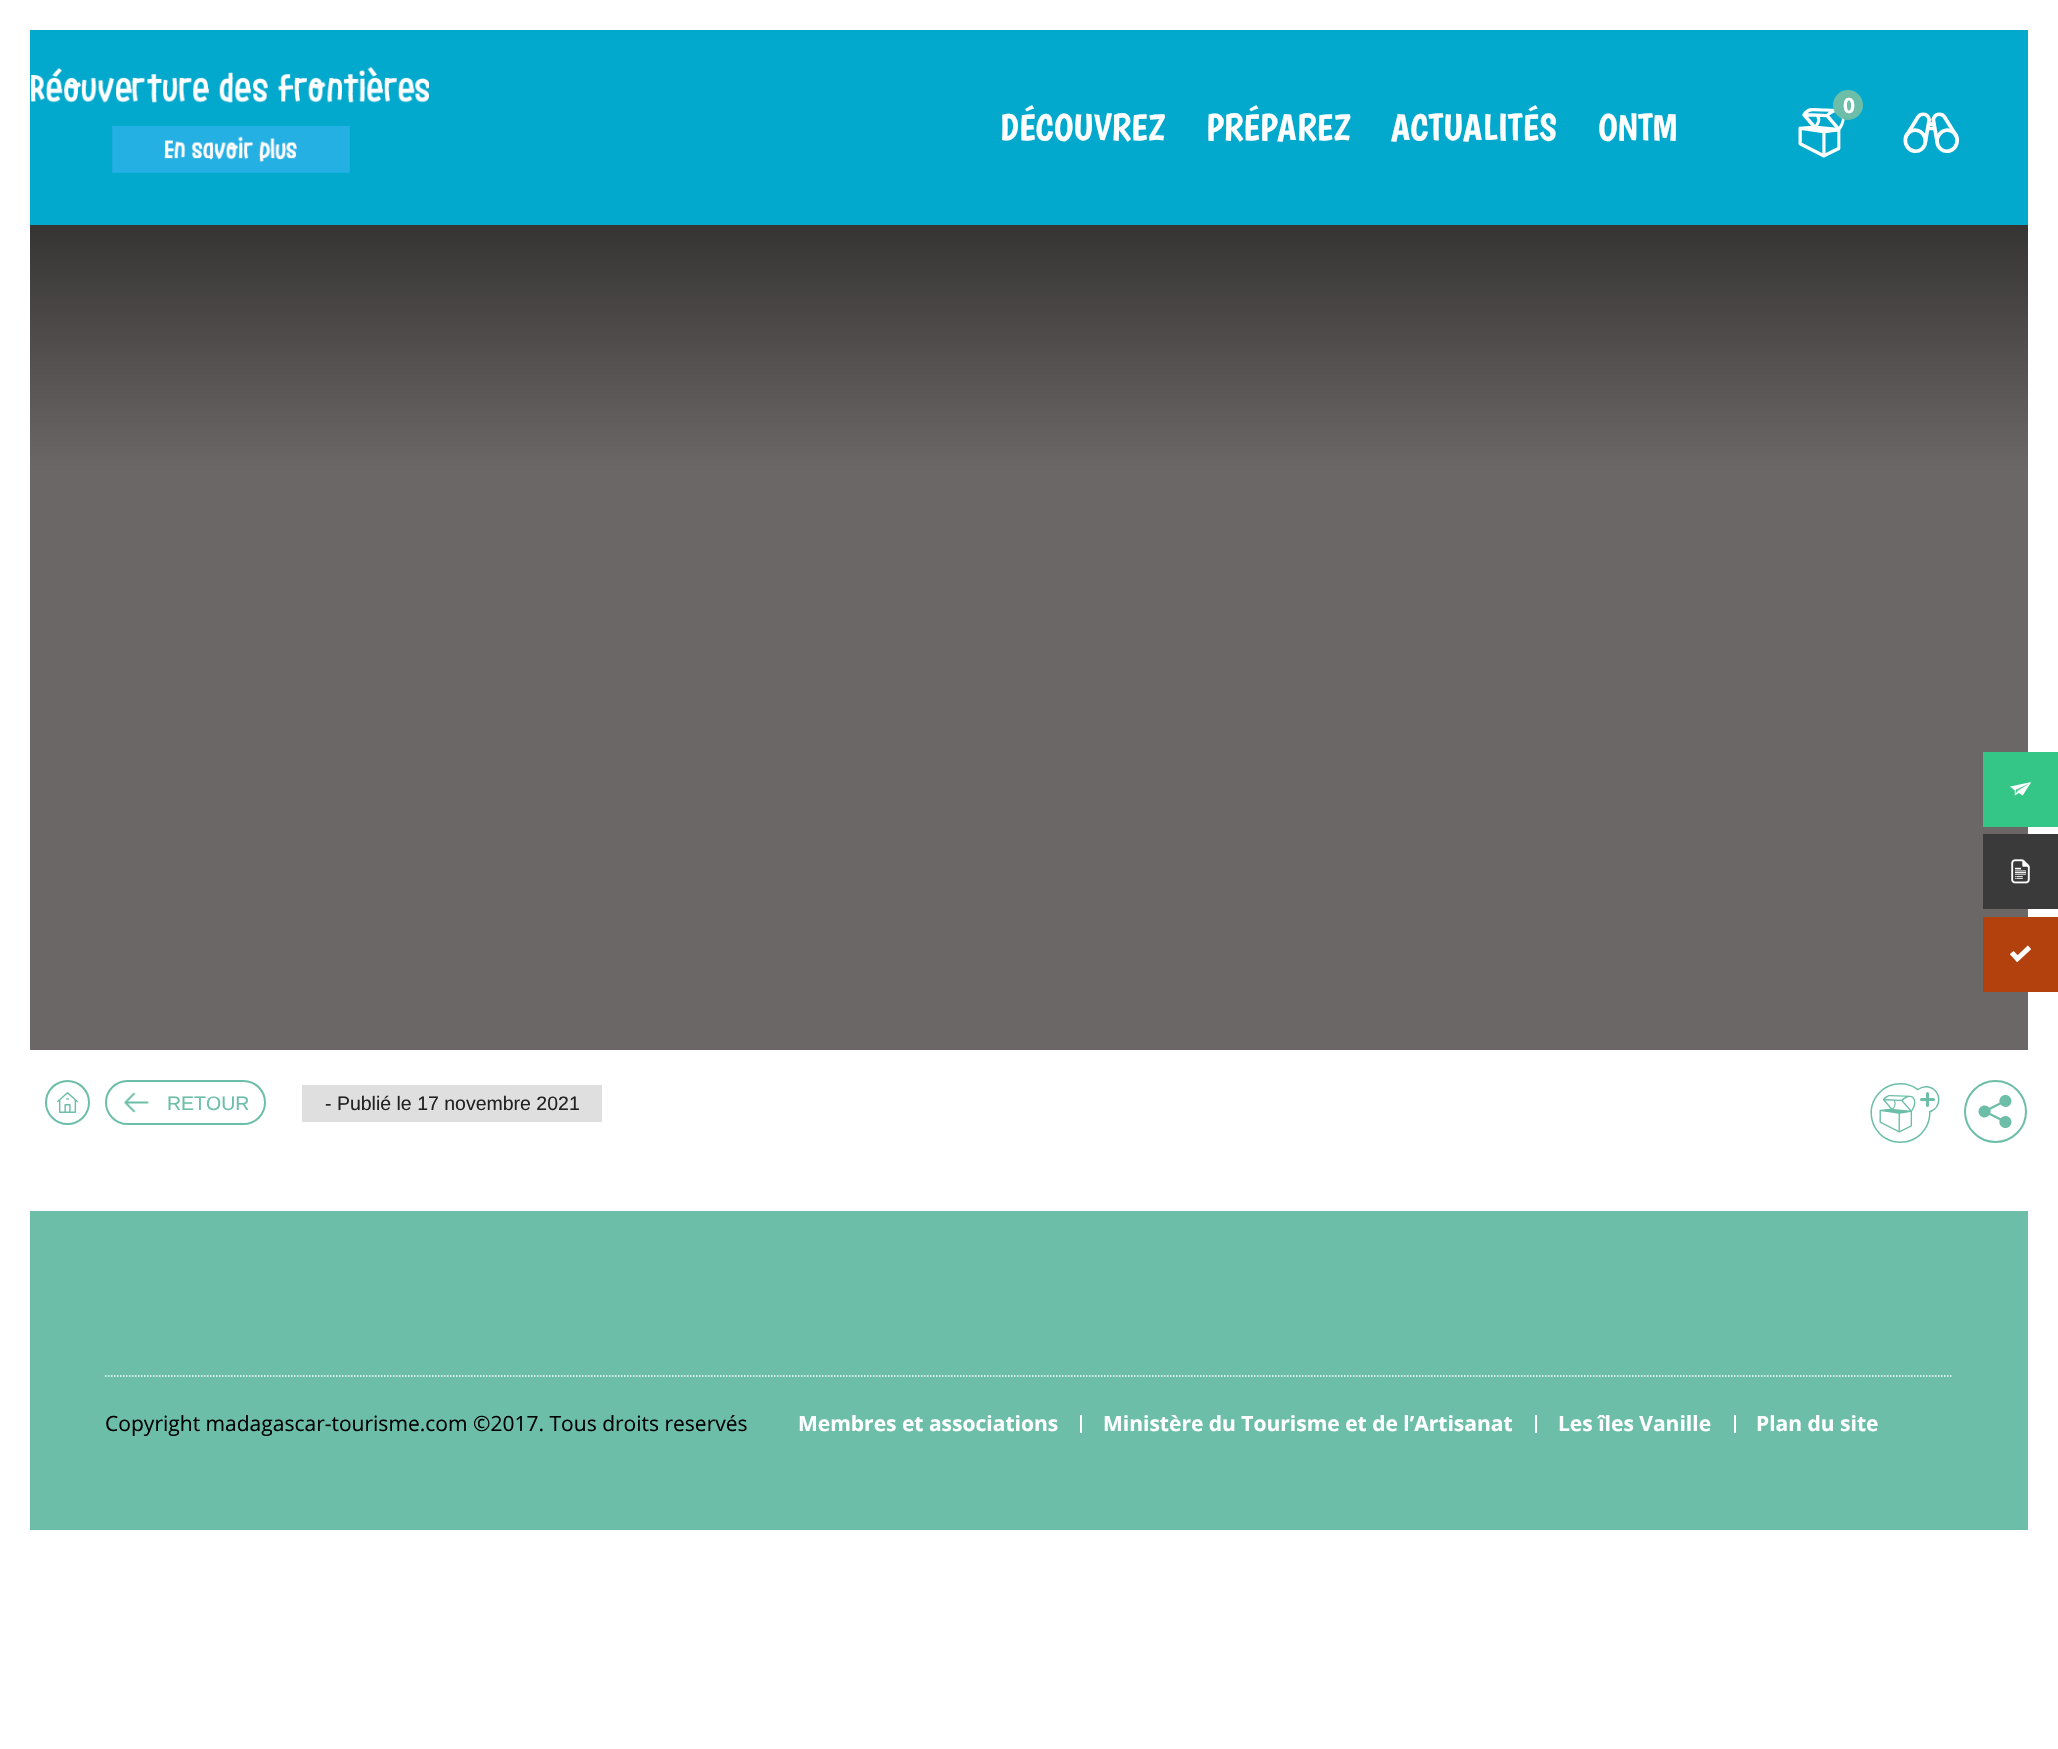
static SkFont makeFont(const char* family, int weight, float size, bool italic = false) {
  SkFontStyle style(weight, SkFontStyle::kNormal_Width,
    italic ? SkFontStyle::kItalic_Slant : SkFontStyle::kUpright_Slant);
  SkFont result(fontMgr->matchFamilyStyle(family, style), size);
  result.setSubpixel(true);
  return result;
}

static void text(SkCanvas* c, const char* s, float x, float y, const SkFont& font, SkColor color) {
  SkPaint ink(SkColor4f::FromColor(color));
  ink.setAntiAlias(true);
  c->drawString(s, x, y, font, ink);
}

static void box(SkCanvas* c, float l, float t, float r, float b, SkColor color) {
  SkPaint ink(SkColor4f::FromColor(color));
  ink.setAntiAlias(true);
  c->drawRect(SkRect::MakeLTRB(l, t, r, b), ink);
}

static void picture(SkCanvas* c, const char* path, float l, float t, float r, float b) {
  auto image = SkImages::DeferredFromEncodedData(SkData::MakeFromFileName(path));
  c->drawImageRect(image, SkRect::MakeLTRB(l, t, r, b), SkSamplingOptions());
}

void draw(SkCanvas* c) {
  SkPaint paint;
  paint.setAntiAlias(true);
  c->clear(0xffffffff);
  box(c, 30, 30, 2028, 225, 0xff03a8cd);
  picture(c, "img_01.png", 31, 67, 429, 173);
  SkFont face1 = makeFont("Boogaloo", 400, 37.5f);
  text(c, "DÉCOUVREZ", 1000, 140, face1, 0xffffffff);
  text(c, "PRÉPAREZ", 1206, 140, face1, 0xffffffff);
  text(c, "ACTUALITÉS", 1391, 140, face1, 0xffffffff);
  text(c, "ONTM", 1598, 140, face1, 0xffffffff);
  picture(c, "img_02.png", 1798, 108, 1845, 158);
  paint.setColor(0xff6cbea8);
  c->drawCircle(1848, 105, 15, paint);
  SkFont face2 = makeFont("Open Sans", 700, 21);
  text(c, "0", 1843, 113, face2, 0xffffffff);
  picture(c, "img_03.png", 1903, 112, 1959, 153);
  {
    const SkColor colors[] = {0xff363433, 0xff6c6867};
    const float stops[] = {0, 1};
    const SkPoint ends[] = {{1029, 225}, {1029, 473}};
    paint.setShader(SkGradientShader::MakeLinear(ends, colors, stops, 2, SkTileMode::kClamp));
    paint.setAlpha(255);
  }
  c->drawRect(SkRect::MakeLTRB(30, 225, 2028, 473), paint);
  box(c, 30, 473, 2028, 1050, 0xff6b6766);
  box(c, 1983, 752, 2058, 827, 0xff33c687);
  picture(c, "img_04.png", 2010, 782, 2031, 796);
  box(c, 1983, 834, 2058, 909, 0xff3a3a3a);
  picture(c, "img_05.png", 2011, 859, 2030, 884);
  box(c, 1983, 917, 2058, 992, 0xffb2410e);
  picture(c, "img_06.png", 2010, 945, 2031, 962);
  paint.setStyle(SkPaint::kStroke_Style);
  paint.setStrokeWidth(2);
  paint.setShader(nullptr);
  paint.setColor(0xff6cbea8);
  c->drawCircle(67.5f, 1102.5f, 21.5f, paint);
  picture(c, "img_07.png", 57, 1092, 78, 1113);
  c->drawRoundRect(SkRect::MakeLTRB(106, 1081, 265, 1124), 21.5f, 21.5f, paint);
  picture(c, "img_08.png", 124, 1092, 149, 1113);
  SkFont face3 = makeFont("Liberation Sans", 400, 19.5f);
  text(c, "RETOUR", 167, 1110, face3, 0xff6cbea8);
  box(c, 302, 1085, 602, 1122, 0xffdfdfdf);
  text(c, "- Publié le 17 novembre 2021", 325, 1110, face3, 0xff222222);
  picture(c, "img_09.png", 1870, 1083, 1940, 1143);
  c->drawCircle(1995.5f, 1111.5f, 30.5f, paint);
  picture(c, "img_10.png", 1978, 1095, 2012, 1128);
  box(c, 30, 1211, 2028, 1530, 0xff6cbea8);
  paint.setStrokeWidth(1.5f);
  paint.setColor(0xffffffff);
  paint.setPathEffect(SkDashPathEffect::Make({{1.5f, 1.5f}}, 0));
  c->drawPath(SkPathBuilder().moveTo(105, 1376).lineTo(1953, 1376).detach(), paint);
  paint.setPathEffect(nullptr);
  SkFont face4 = makeFont("Open Sans", 400, 21);
  text(c, "Copyright madagascar-tourisme.com ©2017. Tous droits reservés", 105, 1431, face4, 0xff000000);
  text(c, "Membres et associations", 798, 1431, face2, 0xffffffff);
  box(c, 1080, 1415, 1082, 1433, 0xffffffff);
  text(c, "Ministère du Tourisme et de l’Artisanat", 1103, 1431, face2, 0xffffffff);
  box(c, 1535, 1415, 1537, 1433, 0xffffffff);
  text(c, "Les îles Vanille", 1558, 1431, face2, 0xffffffff);
  box(c, 1734, 1415, 1736, 1433, 0xffffffff);
  text(c, "Plan du site", 1756, 1431, face2, 0xffffffff);
}
